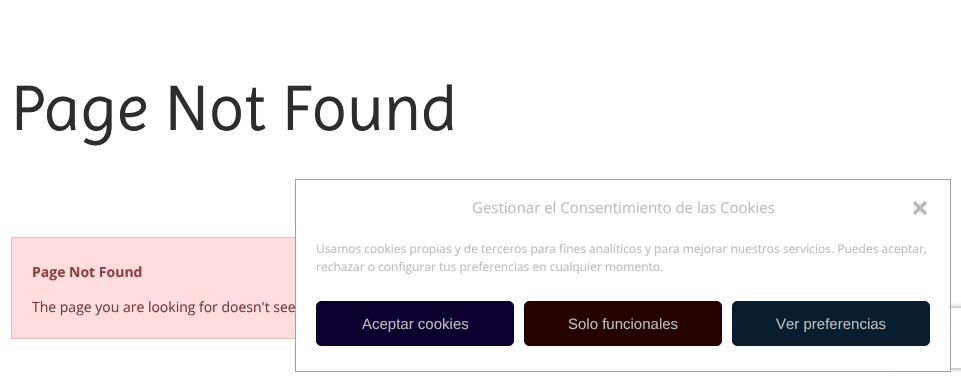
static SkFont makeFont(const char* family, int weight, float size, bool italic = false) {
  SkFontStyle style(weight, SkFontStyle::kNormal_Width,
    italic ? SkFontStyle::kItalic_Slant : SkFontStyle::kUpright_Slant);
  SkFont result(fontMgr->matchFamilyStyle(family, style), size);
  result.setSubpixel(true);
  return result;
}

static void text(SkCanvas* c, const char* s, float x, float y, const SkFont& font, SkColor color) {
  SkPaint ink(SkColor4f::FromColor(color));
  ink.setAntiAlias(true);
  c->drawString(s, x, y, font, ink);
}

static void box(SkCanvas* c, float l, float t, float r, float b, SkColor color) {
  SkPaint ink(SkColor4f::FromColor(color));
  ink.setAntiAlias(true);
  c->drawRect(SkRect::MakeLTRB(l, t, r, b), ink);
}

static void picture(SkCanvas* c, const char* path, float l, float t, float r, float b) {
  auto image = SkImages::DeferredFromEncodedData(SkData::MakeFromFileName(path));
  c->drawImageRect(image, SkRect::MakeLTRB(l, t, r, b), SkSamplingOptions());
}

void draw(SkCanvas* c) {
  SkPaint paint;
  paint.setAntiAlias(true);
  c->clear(0xffffffff);
  SkFont face1 = makeFont("Imprima", 400, 65);
  text(c, "Page Not Found", 11, 130, face1, 0xff2d2d2d);
  box(c, 12, 238, 295, 338, 0xffffdcdd);
  paint.setStyle(SkPaint::kStroke_Style);
  paint.setStrokeWidth(1);
  paint.setColor(0xffe9b9bb);
  c->drawRect(SkRect::MakeLTRB(11.5f, 237.5f, 950.5f, 338.5f), paint);
  SkFont face2 = makeFont("Open Sans", 700, 14);
  text(c, "Page Not Found", 32, 277, face2, 0xff8d4345);
  SkFont face3 = makeFont("Open Sans", 400, 14);
  text(c, "The page you are looking for doesn't see", 32, 312, face3, 0xff713a3c);
  c->save();
  c->clipPath(SkPathBuilder(SkPathFillType::kEvenOdd).moveTo(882, 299).lineTo(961, 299).lineTo(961, 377).lineTo(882, 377).close().moveTo(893, 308).lineTo(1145, 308).cubicTo(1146, 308, 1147, 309, 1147, 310).lineTo(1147, 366).cubicTo(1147, 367, 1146, 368, 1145, 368).lineTo(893, 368).cubicTo(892, 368, 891, 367, 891, 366).lineTo(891, 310).cubicTo(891, 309, 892, 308, 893, 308).close().detach(), true);
  paint.setStyle(SkPaint::kFill_Style);
  paint.setColor(0xff808080);
  paint.setMaskFilter(SkMaskFilter::MakeBlur(kNormal_SkBlurStyle, 2.5f));
  c->drawRoundRect(SkRect::MakeLTRB(891, 308, 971, 368), 2, 2, paint);
  paint.setMaskFilter(nullptr);
  c->restore();
  box(c, 296, 237, 950, 371, 0xffffffff);
  paint.setStyle(SkPaint::kStroke_Style);
  paint.setColor(0xffa19f9f);
  c->drawRect(SkRect::MakeLTRB(295.5f, 179.5f, 950.5f, 371.5f), paint);
  SkFont face4 = makeFont("Open Sans", 400, 15);
  text(c, "Gestionar el Consentimiento de las Cookies", 472, 213, face4, 0xffbbbbbb);
  picture(c, "img_01.png", 913, 201, 927, 215);
  SkFont face5 = makeFont("Open Sans", 400, 12);
  text(c, "Usamos cookies propias y de terceros para fines analíticos y para mejorar nuestros servicios. Puedes aceptar,", 316, 253, face5, 0xffbbbbbb);
  text(c, "rechazar o configurar tus preferencias en cualquier momento.", 316, 271, face5, 0xffbbbbbb);
  paint.setStyle(SkPaint::kFill_Style);
  paint.setColor(0xff090030);
  c->drawRoundRect(SkRect::MakeLTRB(316.5f, 301.5f, 513.5f, 345.5f), 4.5f, 4.5f, paint);
  paint.setStyle(SkPaint::kStroke_Style);
  c->drawRoundRect(SkRect::MakeLTRB(316.5f, 301.5f, 513.5f, 345.5f), 4.5f, 4.5f, paint);
  SkFont face6 = makeFont("Liberation Sans", 400, 15);
  text(c, "Aceptar cookies", 362, 329, face6, 0xffbbbbbb);
  paint.setStyle(SkPaint::kFill_Style);
  paint.setColor(0xff230200);
  c->drawRoundRect(SkRect::MakeLTRB(524.5f, 301.5f, 721.5f, 345.5f), 4.5f, 4.5f, paint);
  paint.setStyle(SkPaint::kStroke_Style);
  c->drawRoundRect(SkRect::MakeLTRB(524.5f, 301.5f, 721.5f, 345.5f), 4.5f, 4.5f, paint);
  text(c, "Solo funcionales", 568, 329, face6, 0xffbbbbbb);
  paint.setStyle(SkPaint::kFill_Style);
  paint.setColor(0xff081e2e);
  c->drawRoundRect(SkRect::MakeLTRB(732.5f, 301.5f, 929.5f, 345.5f), 4.5f, 4.5f, paint);
  paint.setStyle(SkPaint::kStroke_Style);
  c->drawRoundRect(SkRect::MakeLTRB(732.5f, 301.5f, 929.5f, 345.5f), 4.5f, 4.5f, paint);
  text(c, "Ver preferencias", 776, 329, face6, 0xffbbbbbb);
}
